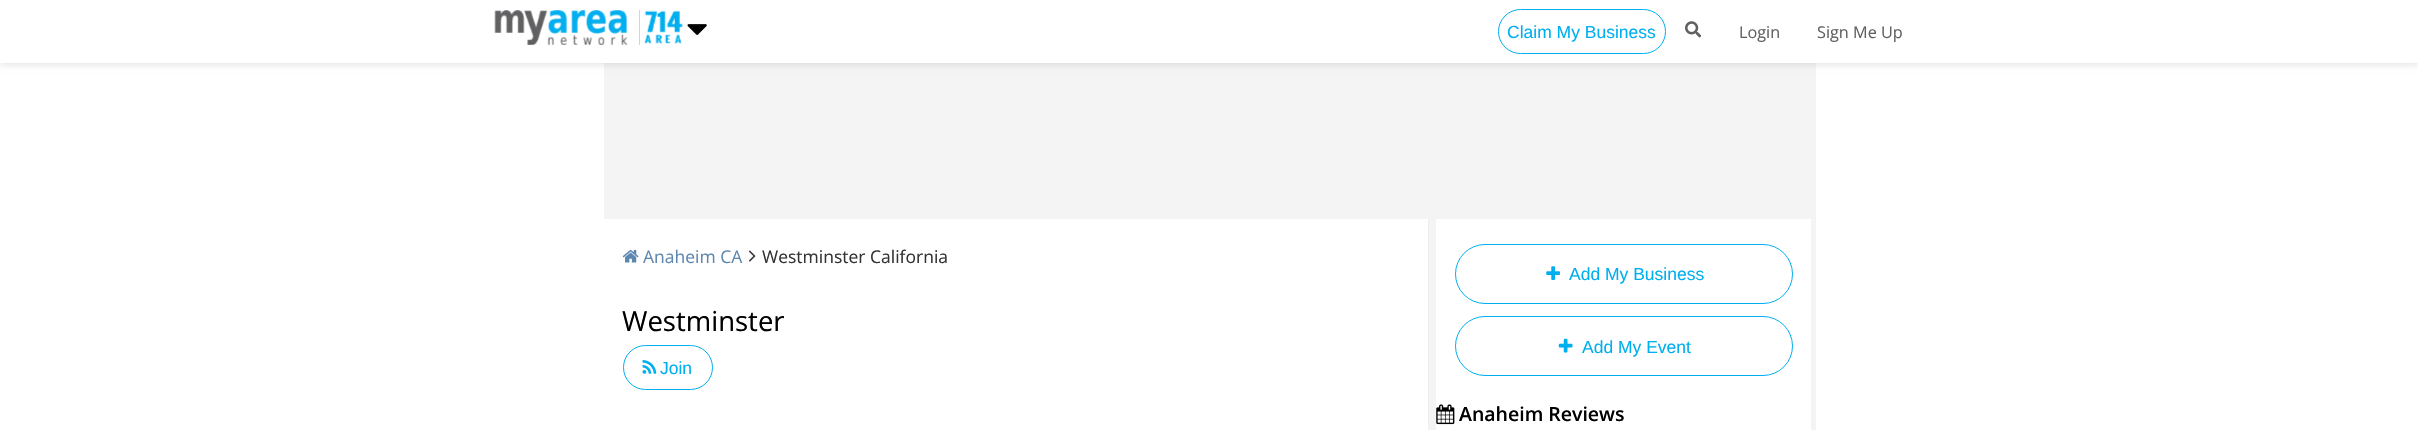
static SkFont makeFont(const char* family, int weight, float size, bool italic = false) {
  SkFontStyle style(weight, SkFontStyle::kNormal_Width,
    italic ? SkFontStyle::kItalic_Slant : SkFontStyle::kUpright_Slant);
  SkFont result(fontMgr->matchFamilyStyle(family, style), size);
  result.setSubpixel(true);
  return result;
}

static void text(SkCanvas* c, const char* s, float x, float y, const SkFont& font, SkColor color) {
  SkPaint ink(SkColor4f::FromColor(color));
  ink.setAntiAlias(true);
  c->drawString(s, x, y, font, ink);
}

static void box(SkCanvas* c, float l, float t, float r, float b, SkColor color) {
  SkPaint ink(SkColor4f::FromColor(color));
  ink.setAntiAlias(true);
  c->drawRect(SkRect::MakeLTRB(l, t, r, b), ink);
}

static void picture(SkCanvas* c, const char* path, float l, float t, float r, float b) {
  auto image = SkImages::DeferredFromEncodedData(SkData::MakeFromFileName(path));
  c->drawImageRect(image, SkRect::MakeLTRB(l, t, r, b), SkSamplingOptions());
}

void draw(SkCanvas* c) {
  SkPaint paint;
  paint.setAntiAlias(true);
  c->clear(0xffffffff);
  box(c, 604, 63, 1816, 430, 0xfff4f4f4);
  paint.setColor(0x1a000000);
  paint.setMaskFilter(SkMaskFilter::MakeBlur(kNormal_SkBlurStyle, 3));
  c->drawRect(SkRect::MakeLTRB(0, 3, 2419, 65), paint);
  paint.setMaskFilter(nullptr);
  box(c, 0, 0, 2418, 63, 0xffffffff);
  picture(c, "img_01.png", 494, 10, 628, 45);
  box(c, 639, 10, 640, 45, 0xffd4d4d4);
  picture(c, "img_02.png", 644, 10, 683, 44);
  picture(c, "img_03.png", 687, 24, 707, 35);
  paint.setStyle(SkPaint::kStroke_Style);
  paint.setStrokeWidth(1);
  paint.setColor(0xff00afef);
  c->drawRoundRect(SkRect::MakeLTRB(1498.5f, 9.5f, 1665.5f, 53.5f), 22, 22, paint);
  SkFont face1 = makeFont("Liberation Sans", 400, 17.5f);
  text(c, "Claim My Business", 1507, 38, face1, 0xff00afef);
  picture(c, "img_04.png", 1685, 21, 1701, 38);
  SkFont face2 = makeFont("Open Sans", 400, 16.25f);
  text(c, "Login", 1739, 38, face2, 0xff606062);
  text(c, "Sign Me Up", 1817, 38, face2, 0xff606062);
  box(c, 604, 219, 1428, 430, 0xffffffff);
  box(c, 1428, 219, 1429, 430, 0xffeeeeee);
  picture(c, "img_05.png", 622, 250, 639, 263);
  SkFont face3 = makeFont("Open Sans", 400, 17.5f);
  text(c, "Anaheim CA", 643, 263, face3, 0xff5e87b0);
  picture(c, "img_06.png", 748, 250, 756, 262);
  text(c, "Westminster California", 762, 263, face3, 0xff333333);
  SkFont face4 = makeFont("Open Sans", 400, 27.5f);
  text(c, "Westminster", 622, 331, face4, 0xff000000);
  c->drawRoundRect(SkRect::MakeLTRB(623.5f, 345.5f, 712.5f, 389.5f), 22, 22, paint);
  picture(c, "img_07.png", 642, 360, 657, 374);
  text(c, "Join", 660, 374, face1, 0xff00afef);
  box(c, 1436, 219, 1811, 430, 0xffffffff);
  c->drawRoundRect(SkRect::MakeLTRB(1455.5f, 244.5f, 1792.5f, 303.5f), 29.5f, 29.5f, paint);
  picture(c, "img_08.png", 1546, 266, 1560, 280);
  text(c, "Add My Business", 1569, 280, face1, 0xff00afef);
  c->drawRoundRect(SkRect::MakeLTRB(1455.5f, 316.5f, 1792.5f, 375.5f), 29.5f, 29.5f, paint);
  picture(c, "img_09.png", 1558, 338, 1573, 353);
  text(c, "Add My Event", 1582, 353, face1, 0xff00afef);
  picture(c, "img_10.png", 1436, 404, 1455, 425);
  SkFont face5 = makeFont("Open Sans", 600, 19.5f);
  text(c, "Anaheim Reviews", 1459, 421, face5, 0xff000000);
}
